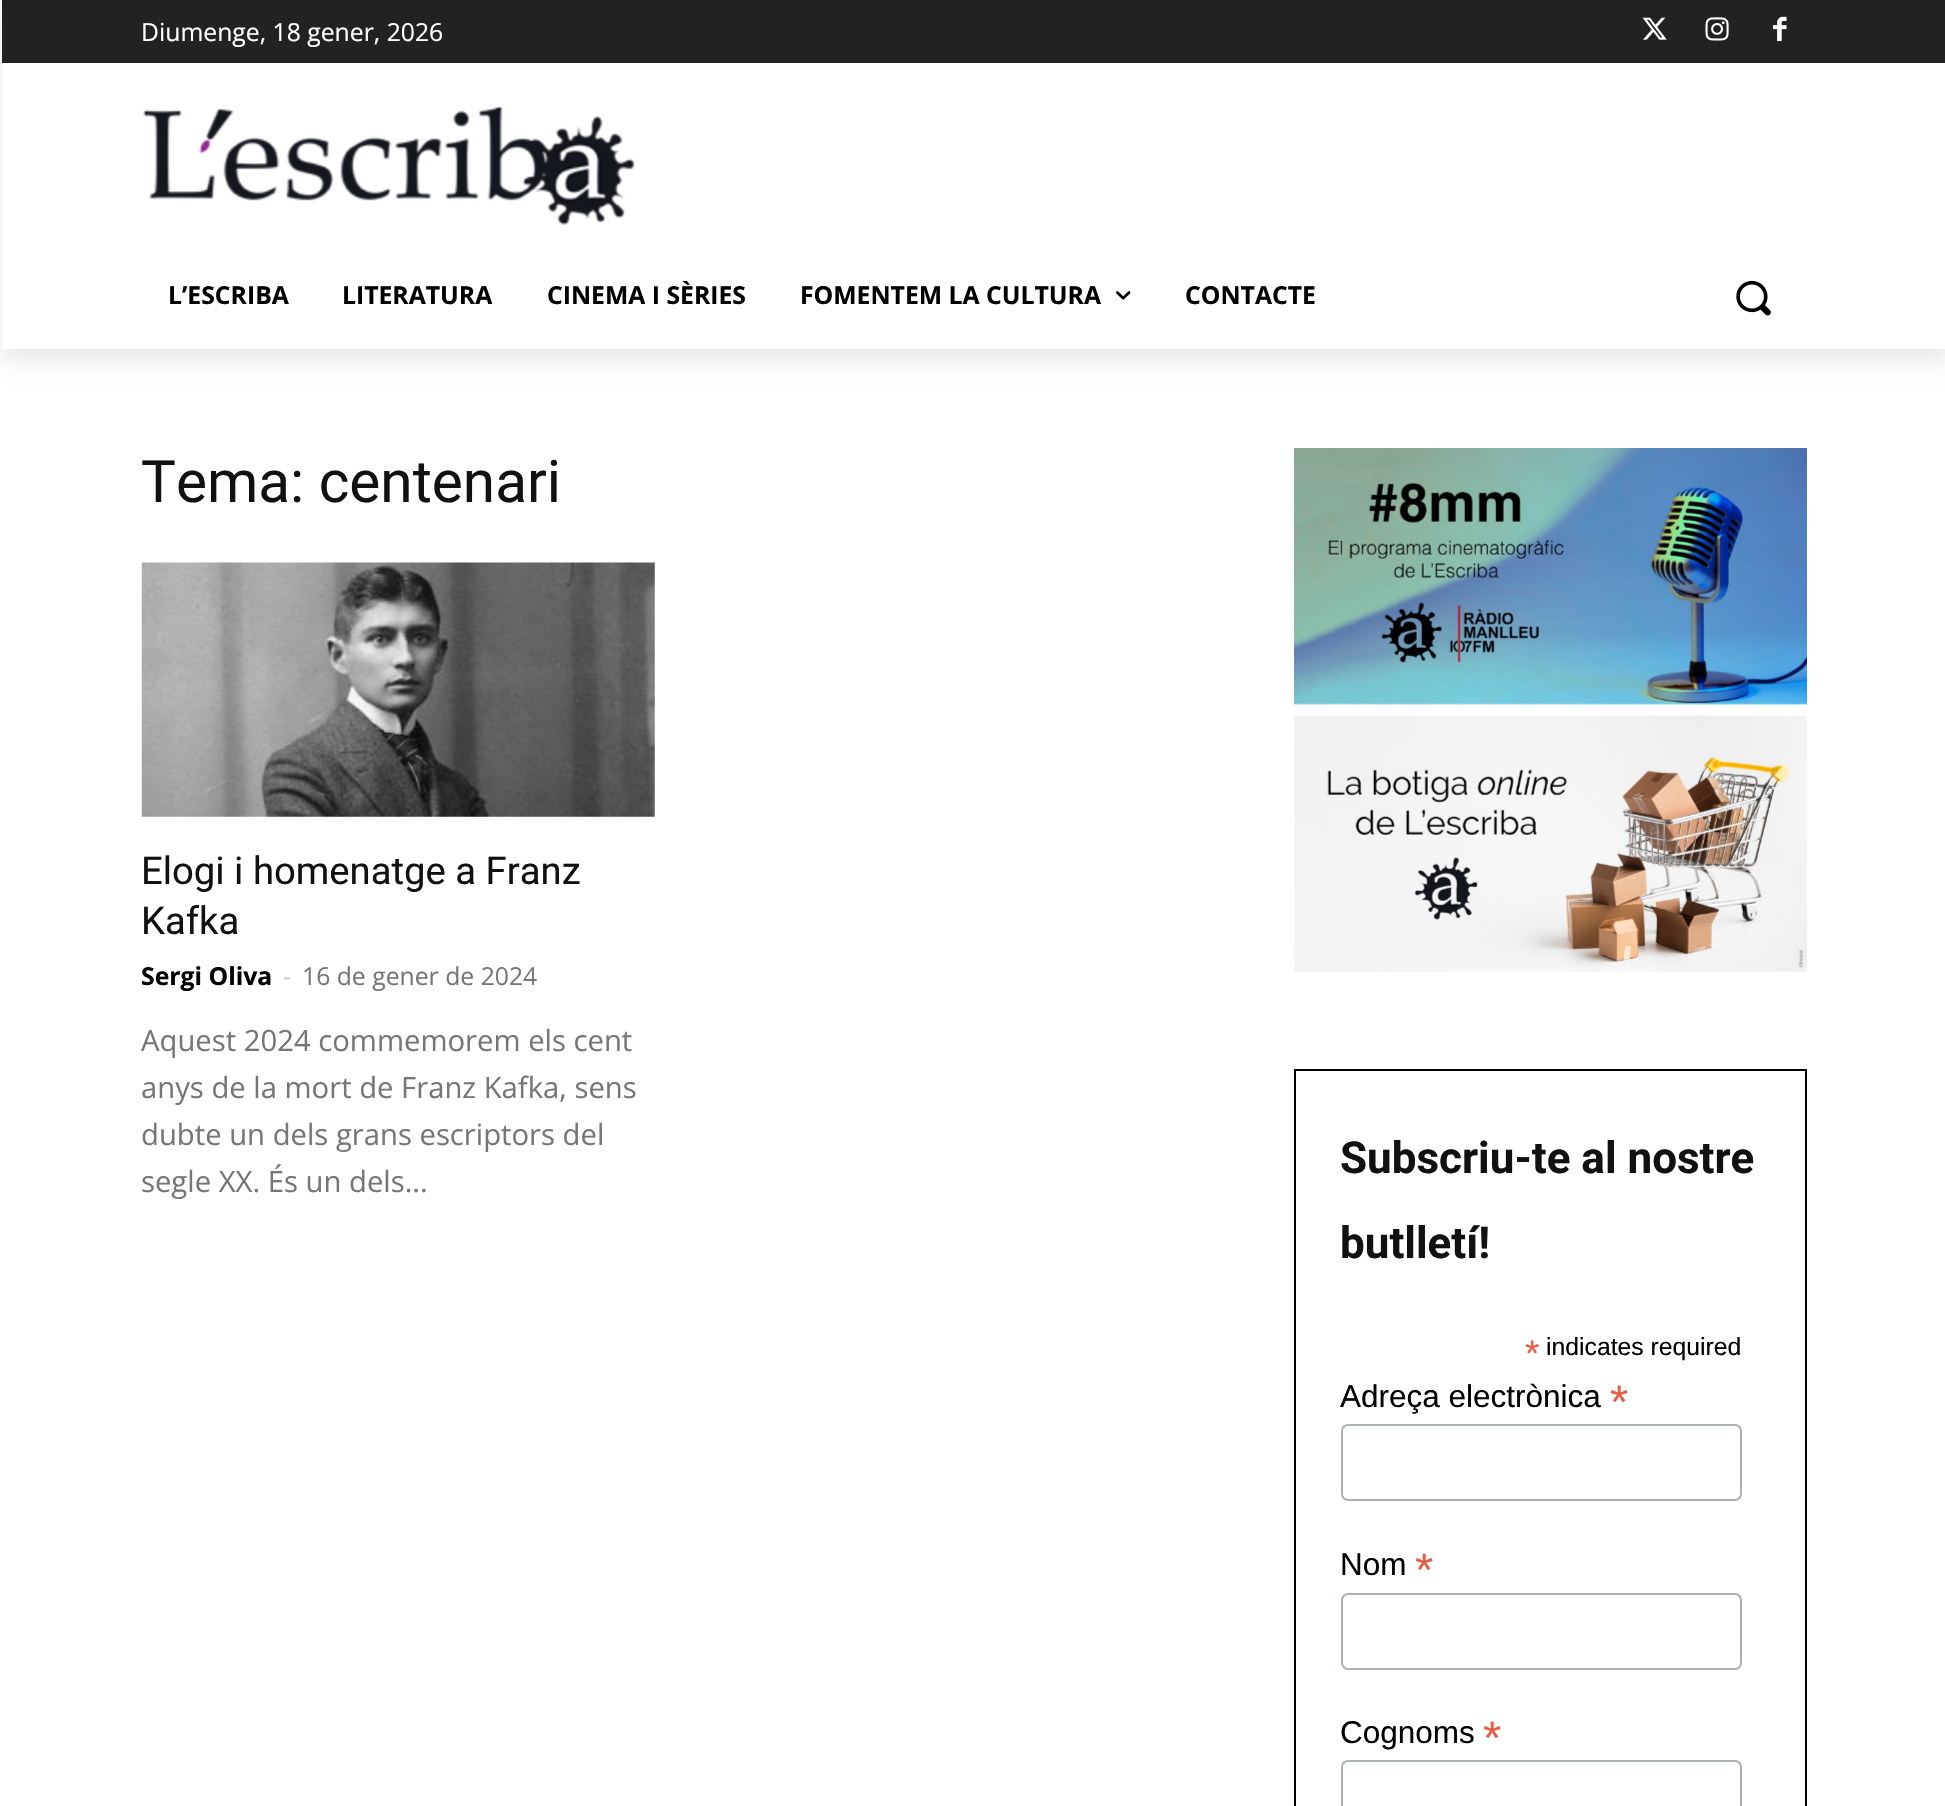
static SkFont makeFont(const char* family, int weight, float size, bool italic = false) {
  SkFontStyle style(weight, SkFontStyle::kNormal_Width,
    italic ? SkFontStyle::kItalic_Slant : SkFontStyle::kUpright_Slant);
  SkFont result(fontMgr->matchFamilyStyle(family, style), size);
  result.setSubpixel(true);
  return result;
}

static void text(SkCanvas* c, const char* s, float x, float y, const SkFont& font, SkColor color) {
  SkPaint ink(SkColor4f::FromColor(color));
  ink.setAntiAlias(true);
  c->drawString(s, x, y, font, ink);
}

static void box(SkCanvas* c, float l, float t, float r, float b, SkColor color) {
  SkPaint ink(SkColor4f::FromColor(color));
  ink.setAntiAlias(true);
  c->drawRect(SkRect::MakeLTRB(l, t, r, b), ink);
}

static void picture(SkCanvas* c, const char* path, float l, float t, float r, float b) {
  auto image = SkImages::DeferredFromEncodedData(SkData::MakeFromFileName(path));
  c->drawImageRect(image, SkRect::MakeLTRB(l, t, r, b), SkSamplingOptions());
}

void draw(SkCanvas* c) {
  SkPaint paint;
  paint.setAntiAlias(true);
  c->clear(0xffffffff);
  box(c, 2, 0, 1945, 63, 0xff222222);
  picture(c, "img_01.png", 1642, 17, 1667, 40);
  picture(c, "img_02.png", 1705, 17, 1729, 41);
  picture(c, "img_03.png", 1773, 16, 1787, 42);
  picture(c, "img_04.png", 142, 105, 635, 226);
  c->save();
  c->clipPath(SkPathBuilder(SkPathFillType::kEvenOdd).moveTo(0, 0).lineTo(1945, 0).lineTo(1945, 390).lineTo(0, 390).close().moveTo(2, 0).lineTo(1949, 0).lineTo(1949, 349).lineTo(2, 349).close().detach(), true);
  paint.setColor(0x14000000);
  paint.setMaskFilter(SkMaskFilter::MakeBlur(kNormal_SkBlurStyle, 9));
  c->drawRect(SkRect::MakeLTRB(2, 14, 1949, 362), paint);
  paint.setMaskFilter(nullptr);
  c->restore();
  SkFont face1 = makeFont("Open Sans", 400, 24.75f);
  text(c, "Diumenge, 18 gener, 2026", 141, 41, face1, 0xffffffff);
  SkFont face2 = makeFont("Open Sans", 700, 24.75f);
  text(c, "L’ESCRIBA", 168, 304, face2, 0xff000000);
  text(c, "LITERATURA", 342, 304, face2, 0xff000000);
  text(c, "CINEMA I SÈRIES", 547, 304, face2, 0xff000000);
  text(c, "FOMENTEM LA CULTURA", 800, 304, face2, 0xff000000);
  picture(c, "img_05.png", 1116, 291, 1131, 300);
  text(c, "CONTACTE", 1185, 304, face2, 0xff000000);
  picture(c, "img_06.png", 1736, 280, 1771, 316);
  SkFont face3 = makeFont("Roboto", 400, 58.5f);
  text(c, "Tema: centenari", 141, 502, face3, 0xff111111);
  picture(c, "img_07.png", 141, 562, 655, 817);
  SkFont face4 = makeFont("Roboto", 400, 38.25f);
  text(c, "Elogi i homenatge a Franz", 141, 884, face4, 0xff111111);
  text(c, "Kafka", 141, 934, face4, 0xff111111);
  text(c, "Sergi Oliva", 141, 985, face2, 0xff000000);
  text(c, "-", 283, 985, face1, 0xffcccccc);
  text(c, "16 de gener de 2024", 302, 985, face1, 0xff767676);
  SkFont face5 = makeFont("Open Sans", 400, 29.25f);
  text(c, "Aquest 2024 commemorem els cent", 141, 1051, face5, 0xff767676);
  text(c, "anys de la mort de Franz Kafka, sens", 141, 1098, face5, 0xff767676);
  text(c, "dubte un dels grans escriptors del", 141, 1145, face5, 0xff767676);
  text(c, "segle XX. És un dels...", 141, 1192, face5, 0xff767676);
  picture(c, "img_08.png", 1294, 448, 1807, 705);
  picture(c, "img_09.png", 1294, 715, 1807, 972);
  paint.setStyle(SkPaint::kStroke_Style);
  paint.setStrokeWidth(2);
  paint.setColor(0xff000000);
  c->drawRect(SkRect::MakeLTRB(1295, 1070, 1806, 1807), paint);
  SkFont face6 = makeFont("Roboto", 700, 44);
  text(c, "Subscriu-te al nostre", 1340, 1173, face6, 0xff111111);
  text(c, "butlletí!", 1340, 1258, face6, 0xff111111);
  SkFont face7 = makeFont("Liberation Sans", 400, 37);
  text(c, "*", 1525, 1366, face7, 0xffe85c41);
  SkFont face8 = makeFont("Liberation Sans", 400, 24.75f);
  text(c, "indicates required", 1546, 1355, face8, 0xff000000);
  SkFont face9 = makeFont("Liberation Sans", 400, 31.5f);
  text(c, "Adreça electrònica", 1340, 1407, face9, 0xff000000);
  SkFont face10 = makeFont("Liberation Sans", 400, 47);
  text(c, "*", 1610, 1418, face10, 0xffe85c41);
  paint.setColor(0xffabb0b2);
  c->drawRoundRect(SkRect::MakeLTRB(1342, 1425, 1741, 1500), 6, 6, paint);
  text(c, "Nom", 1340, 1575, face9, 0xff000000);
  text(c, "*", 1415, 1586, face10, 0xffe85c41);
  c->drawRoundRect(SkRect::MakeLTRB(1342, 1594, 1741, 1669), 6, 6, paint);
  text(c, "Cognoms", 1340, 1743, face9, 0xff000000);
  text(c, "*", 1483, 1754, face10, 0xffe85c41);
  c->drawRoundRect(SkRect::MakeLTRB(1342, 1761, 1741, 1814), 6, 6, paint);
}
